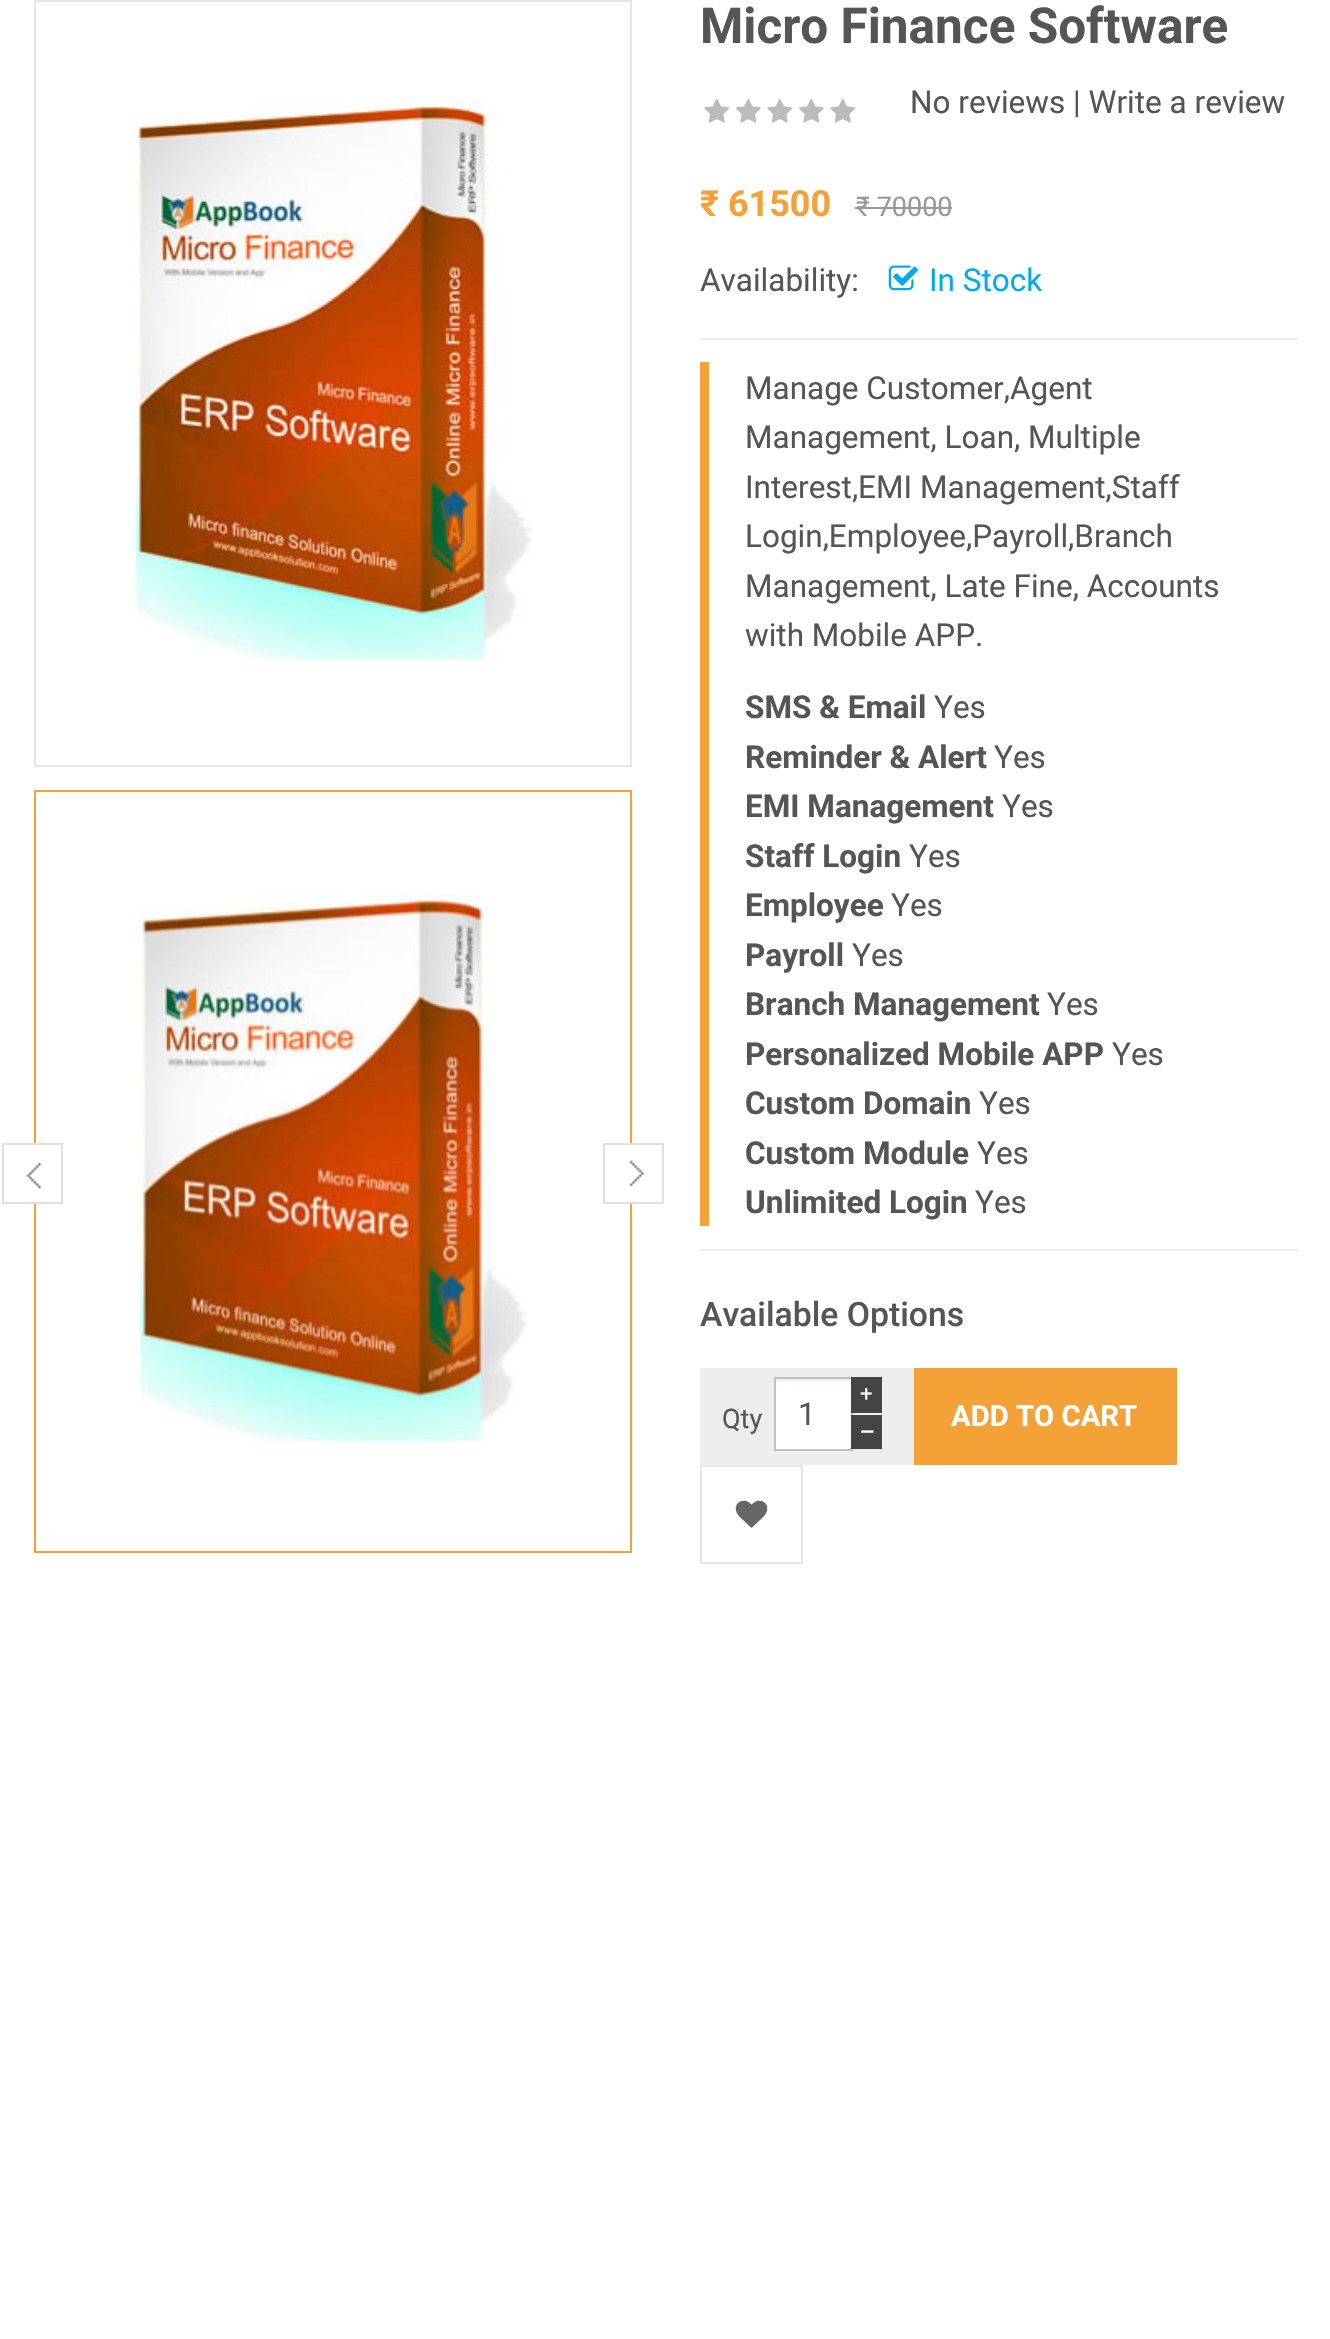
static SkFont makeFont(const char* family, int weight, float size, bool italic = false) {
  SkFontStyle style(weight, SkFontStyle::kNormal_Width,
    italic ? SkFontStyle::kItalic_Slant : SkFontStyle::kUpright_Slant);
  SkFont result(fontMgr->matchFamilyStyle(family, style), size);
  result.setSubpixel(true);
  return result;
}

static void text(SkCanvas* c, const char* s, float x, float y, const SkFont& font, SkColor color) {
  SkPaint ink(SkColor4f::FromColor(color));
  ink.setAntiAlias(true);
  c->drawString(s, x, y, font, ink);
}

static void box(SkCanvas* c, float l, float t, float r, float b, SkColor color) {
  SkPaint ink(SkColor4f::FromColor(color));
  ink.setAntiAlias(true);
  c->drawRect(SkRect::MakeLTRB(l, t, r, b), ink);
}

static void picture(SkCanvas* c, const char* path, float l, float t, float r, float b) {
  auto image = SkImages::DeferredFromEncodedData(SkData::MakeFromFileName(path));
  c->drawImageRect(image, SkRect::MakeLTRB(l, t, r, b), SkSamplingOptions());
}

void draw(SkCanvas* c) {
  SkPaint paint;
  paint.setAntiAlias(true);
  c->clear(0xffffffff);
  paint.setStyle(SkPaint::kStroke_Style);
  paint.setStrokeWidth(2);
  paint.setColor(0xffe6e6e6);
  c->drawRect(SkRect::MakeLTRB(35, 1, 631, 766), paint);
  picture(c, "img_01.png", 132, 99, 533, 662);
  paint.setColor(0xfff4a137);
  c->drawRect(SkRect::MakeLTRB(35, 791, 631, 1552), paint);
  picture(c, "img_02.png", 137, 893, 528, 1444);
  picture(c, "img_03.png", 143, 900, 483, 1403);
  box(c, 34, 1145, 36, 1202, 0xffffffff);
  picture(c, "img_04.png", 26, 1162, 42, 1189);
  paint.setColor(0xffdfdfdf);
  c->drawRect(SkRect::MakeLTRB(3, 1144, 62, 1203), paint);
  box(c, 630, 1145, 632, 1202, 0xffffffff);
  picture(c, "img_05.png", 629, 1160, 645, 1187);
  c->drawRect(SkRect::MakeLTRB(604, 1144, 663, 1203), paint);
  SkFont face1 = makeFont("Roboto", 700, 49.5f);
  text(c, "Micro Finance Software", 700, 43, face1, 0xff555555);
  picture(c, "img_06.png", 704, 99, 730, 123);
  picture(c, "img_07.png", 735, 98, 761, 123);
  picture(c, "img_06.png", 767, 99, 793, 123);
  picture(c, "img_07.png", 798, 98, 824, 123);
  picture(c, "img_06.png", 830, 99, 856, 123);
  SkFont face2 = makeFont("Roboto", 400, 31.5f);
  text(c, "No reviews | Write a review", 910, 113, face2, 0xff555555);
  SkFont face3 = makeFont("Roboto", 700, 36);
  text(c, "₹ 61500", 700, 216, face3, 0xfff4a137);
  SkFont face4 = makeFont("Roboto", 400, 27);
  text(c, "₹ 70000", 856, 216, face4, 0xff999999);
  box(c, 855, 207, 952, 209, 0xff999999);
  text(c, "Availability:", 700, 291, face2, 0xff555555);
  picture(c, "img_08.png", 888, 265, 918, 291);
  text(c, "In Stock", 929, 291, face2, 0xff00abf0);
  box(c, 700, 338, 1298, 340, 0xffeeeeee);
  box(c, 700, 1249, 1298, 1251, 0xffeeeeee);
  box(c, 700, 362, 709, 1226, 0xfff4a137);
  text(c, "Manage Customer,Agent", 745, 399, face2, 0xff555555);
  text(c, "Management, Loan, Multiple", 745, 448, face2, 0xff555555);
  text(c, "Interest,EMI Management,Staff", 745, 498, face2, 0xff555555);
  text(c, "Login,Employee,Payroll,Branch", 745, 547, face2, 0xff555555);
  text(c, "Management, Late Fine, Accounts", 745, 597, face2, 0xff555555);
  text(c, "with Mobile APP.", 745, 646, face2, 0xff555555);
  SkFont face5 = makeFont("Roboto", 700, 31.5f);
  text(c, "SMS & Email", 745, 718, face5, 0xff555555);
  text(c, "Yes", 934, 718, face2, 0xff555555);
  text(c, "Reminder & Alert", 745, 768, face5, 0xff555555);
  text(c, "Yes", 994, 768, face2, 0xff555555);
  text(c, "EMI Management", 745, 817, face5, 0xff555555);
  text(c, "Yes", 1002, 817, face2, 0xff555555);
  text(c, "Staff Login", 745, 867, face5, 0xff555555);
  text(c, "Yes", 909, 867, face2, 0xff555555);
  text(c, "Employee", 745, 916, face5, 0xff555555);
  text(c, "Yes", 891, 916, face2, 0xff555555);
  text(c, "Payroll", 745, 966, face5, 0xff555555);
  text(c, "Yes", 852, 966, face2, 0xff555555);
  text(c, "Branch Management", 745, 1015, face5, 0xff555555);
  text(c, "Yes", 1047, 1015, face2, 0xff555555);
  text(c, "Personalized Mobile APP", 745, 1065, face5, 0xff555555);
  text(c, "Yes", 1112, 1065, face2, 0xff555555);
  text(c, "Custom Domain", 745, 1114, face5, 0xff555555);
  text(c, "Yes", 979, 1114, face2, 0xff555555);
  text(c, "Custom Module", 745, 1164, face5, 0xff555555);
  text(c, "Yes", 977, 1164, face2, 0xff555555);
  text(c, "Unlimited Login", 745, 1213, face5, 0xff555555);
  text(c, "Yes", 975, 1213, face2, 0xff555555);
  SkFont face6 = makeFont("Roboto", 500, 33.75f);
  text(c, "Available Options", 700, 1326, face6, 0xff555555);
  box(c, 700, 1368, 914, 1465, 0xffeeeeee);
  box(c, 776, 1381, 851, 1449, 0xffffffff);
  paint.setColor(0xffbdc2c9);
  c->drawRect(SkRect::MakeLTRB(775, 1378, 852, 1450), paint);
  box(c, 851, 1377, 882, 1413, 0xff444444);
  SkFont face7 = makeFont("Roboto", 400, 22);
  text(c, "+", 860, 1401, face7, 0xffffffff);
  text(c, "Qty", 722, 1428, face4, 0xff555555);
  text(c, "1", 798, 1425, face2, 0xff555555);
  box(c, 851, 1415, 882, 1449, 0xff444444);
  SkFont face8 = makeFont("Roboto", 400, 29.25f);
  text(c, "−", 859, 1442, face8, 0xffffffff);
  box(c, 914, 1368, 1177, 1465, 0xfff4a137);
  SkFont face9 = makeFont("Roboto", 700, 29.25f);
  text(c, "ADD TO CART", 951, 1426, face9, 0xffffffff);
  paint.setColor(0xffe6e6e6);
  c->drawRect(SkRect::MakeLTRB(701, 1466, 802, 1563), paint);
  picture(c, "img_09.png", 735, 1500, 768, 1528);
}
